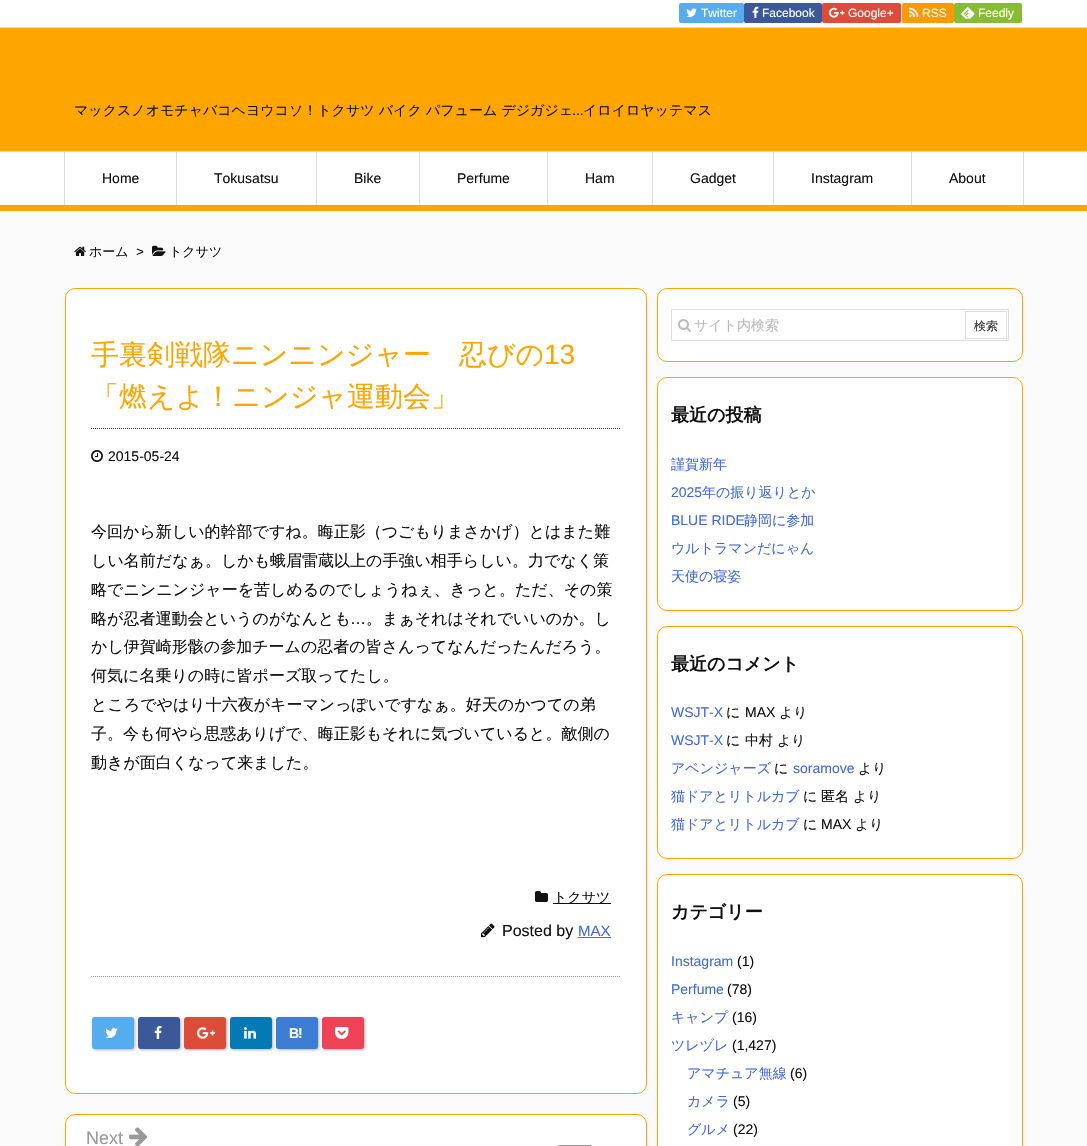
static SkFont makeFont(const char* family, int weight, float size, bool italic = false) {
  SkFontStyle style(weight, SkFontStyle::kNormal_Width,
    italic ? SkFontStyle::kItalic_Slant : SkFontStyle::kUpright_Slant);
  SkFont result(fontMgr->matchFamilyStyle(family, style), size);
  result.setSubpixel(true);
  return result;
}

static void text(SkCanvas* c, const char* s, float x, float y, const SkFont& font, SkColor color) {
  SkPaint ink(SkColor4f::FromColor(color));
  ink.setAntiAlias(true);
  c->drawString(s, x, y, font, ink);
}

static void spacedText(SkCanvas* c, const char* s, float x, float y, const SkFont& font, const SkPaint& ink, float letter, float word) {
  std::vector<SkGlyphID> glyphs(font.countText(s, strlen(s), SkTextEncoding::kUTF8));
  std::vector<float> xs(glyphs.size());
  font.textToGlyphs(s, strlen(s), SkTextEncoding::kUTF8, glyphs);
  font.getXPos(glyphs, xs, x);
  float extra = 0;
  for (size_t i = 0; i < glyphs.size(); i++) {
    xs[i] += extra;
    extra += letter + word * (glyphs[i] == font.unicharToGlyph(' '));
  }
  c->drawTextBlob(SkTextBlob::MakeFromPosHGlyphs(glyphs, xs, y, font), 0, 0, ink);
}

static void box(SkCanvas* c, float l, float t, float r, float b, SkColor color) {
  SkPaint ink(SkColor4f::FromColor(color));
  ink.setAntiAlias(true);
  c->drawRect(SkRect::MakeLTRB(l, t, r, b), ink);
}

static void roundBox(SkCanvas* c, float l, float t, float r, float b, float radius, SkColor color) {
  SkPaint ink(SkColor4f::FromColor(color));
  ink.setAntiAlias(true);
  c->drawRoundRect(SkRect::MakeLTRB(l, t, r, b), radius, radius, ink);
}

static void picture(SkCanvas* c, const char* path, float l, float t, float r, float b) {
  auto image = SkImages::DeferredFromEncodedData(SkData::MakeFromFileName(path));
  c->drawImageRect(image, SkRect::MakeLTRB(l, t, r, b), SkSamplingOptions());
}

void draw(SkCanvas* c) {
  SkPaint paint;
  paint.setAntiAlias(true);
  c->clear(0xfffafafa);
  box(c, 0, 28, 1087, 151, 0xffffa500);
  box(c, 0, 0, 1087, 27, 0xffffffff);
  box(c, 0, 27, 1087, 28, 0xffdddddd);
  roundBox(c, 679, 3, 744, 23, 2, 0xff55acee);
  picture(c, "img_01.png", 686, 8, 697, 17);
  SkFont face1 = makeFont("Liberation Sans", 400, 12);
  text(c, "Twitter", 701, 17, face1, 0xffffffff);
  roundBox(c, 744, 3, 822, 23, 2, 0xff3b5998);
  picture(c, "img_02.png", 752, 6, 759, 18);
  text(c, "Facebook", 762, 17, face1, 0xffffffff);
  roundBox(c, 822, 3, 901, 23, 2, 0xffdd4b39);
  picture(c, "img_03.png", 829, 7, 845, 18);
  text(c, "Google+", 848, 17, face1, 0xffffffff);
  roundBox(c, 902, 3, 954, 23, 2, 0xfffe9900);
  picture(c, "img_04.png", 909, 7, 919, 17);
  text(c, "RSS", 922, 17, face1, 0xffffffff);
  roundBox(c, 954, 3, 1022, 23, 2, 0xff87bd33);
  picture(c, "img_05.png", 961, 7, 975, 19);
  text(c, "Feedly", 978, 17, face1, 0xffffffff);
  box(c, 0, 152, 1087, 205, 0xffffffff);
  box(c, 0, 151, 1087, 152, 0xffdddddd);
  box(c, 0, 205, 1087, 211, 0xffffa500);
  box(c, 1023, 152, 1024, 205, 0xffdddddd);
  box(c, 64, 152, 65, 205, 0xffdddddd);
  SkFont face2 = makeFont("Liberation Sans", 400, 14);
  text(c, "Home", 102, 183, face2, 0xff111111);
  box(c, 176, 152, 177, 205, 0xffdddddd);
  text(c, "Tokusatsu", 214, 183, face2, 0xff111111);
  box(c, 316, 152, 317, 205, 0xffdddddd);
  text(c, "Bike", 354, 183, face2, 0xff111111);
  box(c, 419, 152, 420, 205, 0xffdddddd);
  text(c, "Perfume", 457, 183, face2, 0xff111111);
  box(c, 547, 152, 548, 205, 0xffdddddd);
  text(c, "Ham", 585, 183, face2, 0xff111111);
  box(c, 652, 152, 653, 205, 0xffdddddd);
  text(c, "Gadget", 690, 183, face2, 0xff111111);
  box(c, 773, 152, 774, 205, 0xffdddddd);
  text(c, "Instagram", 811, 183, face2, 0xff111111);
  box(c, 911, 152, 912, 205, 0xffdddddd);
  text(c, "About", 949, 183, face2, 0xff111111);
  SkFont face3 = makeFont("WenQuanYi Zen Hei", 500, 14);
  text(c, "マックスノオモチャバコヘヨウコソ！トクサツ バイク パフューム デジガジェ", 74, 115, face3, 0xff111111);
  text(c, "...", 572, 115, face2, 0xff111111);
  text(c, "イロイロヤッテマス", 583, 115, face3, 0xff111111);
  picture(c, "img_06.png", 74, 246, 86, 256);
  SkFont face4 = makeFont("WenQuanYi Zen Hei", 500, 13);
  text(c, "ホーム", 89, 256, face4, 0xff111111);
  SkFont face5 = makeFont("Liberation Sans", 400, 13, true);
  text(c, ">", 136, 256, face5, 0xff111111);
  picture(c, "img_07.png", 152, 245, 166, 256);
  text(c, "トクサツ", 169, 256, face4, 0xff111111);
  paint.setColor(0xffffffff);
  c->drawRoundRect(SkRect::MakeLTRB(65.5f, 288.5f, 646.5f, 1093.5f), 9.5f, 9.5f, paint);
  paint.setStyle(SkPaint::kStroke_Style);
  paint.setStrokeWidth(1);
  paint.setColor(0xffffa500);
  c->drawRoundRect(SkRect::MakeLTRB(65.5f, 288.5f, 646.5f, 1093.5f), 9.5f, 9.5f, paint);
  SkFont face6 = makeFont("WenQuanYi Zen Hei", 500, 28);
  text(c, "手裏剣戦隊ニンニンジャー　忍びの", 91, 364, face6, 0xffffa500);
  SkFont face7 = makeFont("Liberation Sans", 400, 28);
  text(c, "13", 544, 364, face7, 0xffffa500);
  text(c, "「燃えよ！ニンジャ運動会」", 91, 406, face6, 0xffffa500);
  paint.setColor(0xff333333);
  paint.setPathEffect(SkDashPathEffect::Make({{1, 1}}, 0));
  c->drawPath(SkPathBuilder().moveTo(91, 428.5f).lineTo(621, 428.5f).detach(), paint);
  paint.setPathEffect(nullptr);
  picture(c, "img_08.png", 91, 450, 103, 462);
  text(c, "2015-05-24", 108, 461, face2, 0xff111111);
  SkFont face8 = makeFont("WenQuanYi Zen Hei", 500, 16);
  text(c, "今回から新しい的幹部ですね。晦正影（つごもりまさかげ）とはまた難", 91, 537, face8, 0xff111111);
  text(c, "しい名前だなぁ。しかも蛾眉雷蔵以上の手強い相手らしい。力でなく策", 91, 566, face8, 0xff111111);
  text(c, "略でニンニンジャーを苦しめるのでしょうねぇ、きっと。ただ、その策", 91, 595, face8, 0xff111111);
  text(c, "略が忍者運動会というのがなんとも", 91, 624, face8, 0xff111111);
  SkFont face9 = makeFont("Liberation Sans", 400, 16);
  text(c, "…", 350, 624, face9, 0xff111111);
  text(c, "。まぁそれはそれでいいのか。し", 366, 624, face8, 0xff111111);
  text(c, "かし伊賀崎形骸の参加チームの忍者の皆さんってなんだったんだろう。", 91, 652, face8, 0xff111111);
  text(c, "何気に名乗りの時に皆ポーズ取ってたし。", 91, 681, face8, 0xff111111);
  text(c, "ところでやはり十六夜がキーマンっぽいですなぁ。好天のかつての弟", 91, 710, face8, 0xff111111);
  text(c, "子。今も何やら思惑ありげで、晦正影もそれに気づいていると。敵側の", 91, 739, face8, 0xff111111);
  text(c, "動きが面白くなって来ました。", 91, 768, face8, 0xff111111);
  picture(c, "img_09.png", 535, 891, 548, 902);
  box(c, 553, 903, 611, 904, 0xff111111);
  text(c, "トクサツ", 553, 902, face3, 0xff111111);
  picture(c, "img_10.png", 481, 923, 495, 938);
  text(c, "Posted by", 502, 936, face9, 0xff111111);
  SkFont face10 = makeFont("Liberation Sans", 400, 15);
  text(c, "MAX", 578, 936, face10, 0xff4169e1);
  box(c, 578, 937, 611, 938, 0xff4169e1);
  paint.setColor(0xff999999);
  paint.setPathEffect(SkDashPathEffect::Make({{1, 1}}, 0));
  c->drawPath(SkPathBuilder().moveTo(91, 976.5f).lineTo(621, 976.5f).detach(), paint);
  paint.setPathEffect(nullptr);
  paint.setStyle(SkPaint::kFill_Style);
  paint.setColor(0x4d000000);
  paint.setMaskFilter(SkMaskFilter::MakeBlur(kNormal_SkBlurStyle, 1.5f));
  c->drawRoundRect(SkRect::MakeLTRB(93, 1018, 135, 1050), 3, 3, paint);
  paint.setMaskFilter(nullptr);
  roundBox(c, 92, 1017, 134, 1049, 3, 0xff55acee);
  picture(c, "img_11.png", 105, 1028, 118, 1038);
  paint.setMaskFilter(SkMaskFilter::MakeBlur(kNormal_SkBlurStyle, 1.5f));
  c->drawRoundRect(SkRect::MakeLTRB(139, 1018, 181, 1050), 3, 3, paint);
  paint.setMaskFilter(nullptr);
  roundBox(c, 138, 1017, 180, 1049, 3, 0xff3b5998);
  picture(c, "img_12.png", 154, 1026, 162, 1039);
  paint.setMaskFilter(SkMaskFilter::MakeBlur(kNormal_SkBlurStyle, 1.5f));
  c->drawRoundRect(SkRect::MakeLTRB(185, 1018, 227, 1050), 3, 3, paint);
  paint.setMaskFilter(nullptr);
  roundBox(c, 184, 1017, 226, 1049, 3, 0xffdd4b39);
  picture(c, "img_13.png", 197, 1027, 215, 1039);
  paint.setMaskFilter(SkMaskFilter::MakeBlur(kNormal_SkBlurStyle, 1.5f));
  c->drawRoundRect(SkRect::MakeLTRB(231, 1018, 273, 1050), 3, 3, paint);
  paint.setMaskFilter(nullptr);
  roundBox(c, 230, 1017, 272, 1049, 3, 0xff0479b4);
  picture(c, "img_14.png", 244, 1027, 256, 1039);
  paint.setMaskFilter(SkMaskFilter::MakeBlur(kNormal_SkBlurStyle, 1.5f));
  c->drawRoundRect(SkRect::MakeLTRB(277, 1018, 319, 1050), 3, 3, paint);
  paint.setMaskFilter(nullptr);
  roundBox(c, 276, 1017, 318, 1049, 3, 0xff3c7dd1);
  SkFont face11 = makeFont("Liberation Sans", 700, 14);
  paint.setColor(0xffffffff);
  spacedText(c, "B!", 289, 1038, face11, paint, -1, 0);
  paint.setColor(0x4d000000);
  paint.setMaskFilter(SkMaskFilter::MakeBlur(kNormal_SkBlurStyle, 1.5f));
  c->drawRoundRect(SkRect::MakeLTRB(323, 1018, 365, 1050), 3, 3, paint);
  paint.setMaskFilter(nullptr);
  roundBox(c, 322, 1017, 364, 1049, 3, 0xffee4257);
  picture(c, "img_15.png", 335, 1027, 349, 1039);
  paint.setColor(0xffffffff);
  c->drawRoundRect(SkRect::MakeLTRB(65.5f, 1114.5f, 646.5f, 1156.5f), 9.5f, 9.5f, paint);
  paint.setStyle(SkPaint::kStroke_Style);
  paint.setColor(0xffffa500);
  c->drawRoundRect(SkRect::MakeLTRB(65.5f, 1114.5f, 646.5f, 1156.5f), 9.5f, 9.5f, paint);
  SkFont face12 = makeFont("Liberation Sans", 400, 18);
  text(c, "Next", 86, 1144, face12, 0xff999999);
  picture(c, "img_16.png", 129, 1127, 147, 1146);
  picture(c, "img_17.png", 557, 1145, 591, 1146);
  paint.setStyle(SkPaint::kFill_Style);
  paint.setColor(0xffffffff);
  c->drawRoundRect(SkRect::MakeLTRB(657.5f, 288.5f, 1022.5f, 361.5f), 9.5f, 9.5f, paint);
  paint.setStyle(SkPaint::kStroke_Style);
  paint.setColor(0xffffa500);
  c->drawRoundRect(SkRect::MakeLTRB(657.5f, 288.5f, 1022.5f, 361.5f), 9.5f, 9.5f, paint);
  paint.setColor(0xffdddddd);
  c->drawRect(SkRect::MakeLTRB(671.5f, 309.5f, 1008.5f, 340.5f), paint);
  picture(c, "img_18.png", 678, 319, 691, 332);
  text(c, "サイト内検索", 694, 330, face3, 0xffbbbbbb);
  c->drawRect(SkRect::MakeLTRB(965.5f, 311.5f, 1006.5f, 338.5f), paint);
  SkFont face13 = makeFont("WenQuanYi Zen Hei", 500, 12);
  text(c, "検索", 974, 330, face13, 0xff333333);
  paint.setStyle(SkPaint::kFill_Style);
  paint.setColor(0xffffffff);
  c->drawRoundRect(SkRect::MakeLTRB(657.5f, 377.5f, 1022.5f, 610.5f), 9.5f, 9.5f, paint);
  paint.setStyle(SkPaint::kStroke_Style);
  paint.setColor(0xffffa500);
  c->drawRoundRect(SkRect::MakeLTRB(657.5f, 377.5f, 1022.5f, 610.5f), 9.5f, 9.5f, paint);
  SkFont face14 = makeFont("WenQuanYi Zen Hei", 700, 18);
  text(c, "最近の投稿", 671, 421, face14, 0xff111111);
  text(c, "謹賀新年", 671, 469, face3, 0xff4169e1);
  text(c, "2025", 671, 497, face2, 0xff4169e1);
  text(c, "年の振り返りとか", 702, 497, face3, 0xff4169e1);
  text(c, "BLUE RIDE", 671, 525, face2, 0xff4169e1);
  text(c, "静岡に参加", 744, 525, face3, 0xff4169e1);
  text(c, "ウルトラマンだにゃん", 671, 553, face3, 0xff4169e1);
  text(c, "天使の寝姿", 671, 581, face3, 0xff4169e1);
  paint.setStyle(SkPaint::kFill_Style);
  paint.setColor(0xffffffff);
  c->drawRoundRect(SkRect::MakeLTRB(657.5f, 626.5f, 1022.5f, 858.5f), 9.5f, 9.5f, paint);
  paint.setStyle(SkPaint::kStroke_Style);
  paint.setColor(0xffffa500);
  c->drawRoundRect(SkRect::MakeLTRB(657.5f, 626.5f, 1022.5f, 858.5f), 9.5f, 9.5f, paint);
  text(c, "最近のコメント", 671, 670, face14, 0xff111111);
  text(c, "WSJT-X", 671, 717, face2, 0xff4169e1);
  text(c, "に", 726, 717, face3, 0xff111111);
  text(c, "MAX", 745, 717, face2, 0xff111111);
  text(c, "より", 779, 717, face3, 0xff111111);
  text(c, "WSJT-X", 671, 745, face2, 0xff4169e1);
  text(c, "に", 726, 745, face3, 0xff111111);
  text(c, "中村", 745, 745, face3, 0xff111111);
  text(c, "より", 777, 745, face3, 0xff111111);
  text(c, "アベンジャーズ", 671, 773, face3, 0xff4169e1);
  text(c, "に", 774, 773, face3, 0xff111111);
  text(c, "soramove", 793, 773, face2, 0xff4169e1);
  text(c, "より", 858, 773, face3, 0xff111111);
  text(c, "猫ドアとリトルカブ", 671, 801, face3, 0xff4169e1);
  text(c, "に", 803, 801, face3, 0xff111111);
  text(c, "匿名", 821, 801, face3, 0xff111111);
  text(c, "より", 853, 801, face3, 0xff111111);
  text(c, "猫ドアとリトルカブ", 671, 829, face3, 0xff4169e1);
  text(c, "に", 803, 829, face3, 0xff111111);
  text(c, "MAX", 821, 829, face2, 0xff111111);
  text(c, "より", 855, 829, face3, 0xff111111);
  paint.setStyle(SkPaint::kFill_Style);
  paint.setColor(0xffffffff);
  c->drawRoundRect(SkRect::MakeLTRB(657.5f, 874.5f, 1022.5f, 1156.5f), 9.5f, 9.5f, paint);
  paint.setStyle(SkPaint::kStroke_Style);
  paint.setColor(0xffffa500);
  c->drawRoundRect(SkRect::MakeLTRB(657.5f, 874.5f, 1022.5f, 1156.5f), 9.5f, 9.5f, paint);
  text(c, "カテゴリー", 671, 918, face14, 0xff111111);
  text(c, "Instagram", 671, 966, face2, 0xff4169e1);
  text(c, "(1)", 737, 966, face2, 0xff111111);
  text(c, "Perfume", 671, 994, face2, 0xff4169e1);
  text(c, "(78)", 727, 994, face2, 0xff111111);
  text(c, "キャンプ", 671, 1022, face3, 0xff4169e1);
  text(c, "(16)", 732, 1022, face2, 0xff111111);
  text(c, "ツレヅレ", 671, 1050, face3, 0xff4169e1);
  text(c, "(1,427)", 732, 1050, face2, 0xff111111);
  text(c, "アマチュア無線", 687, 1078, face3, 0xff4169e1);
  text(c, "(6)", 790, 1078, face2, 0xff111111);
  text(c, "カメラ", 687, 1106, face3, 0xff4169e1);
  text(c, "(5)", 733, 1106, face2, 0xff111111);
  text(c, "グルメ", 687, 1134, face3, 0xff4169e1);
  text(c, "(22)", 733, 1134, face2, 0xff111111);
}
